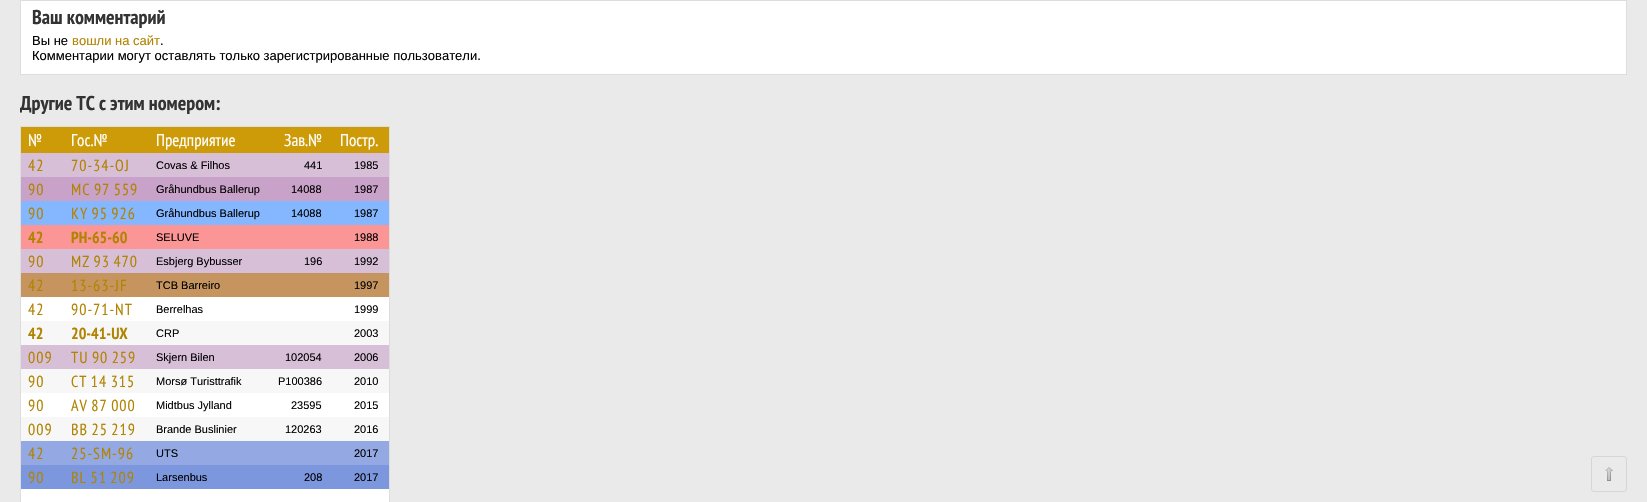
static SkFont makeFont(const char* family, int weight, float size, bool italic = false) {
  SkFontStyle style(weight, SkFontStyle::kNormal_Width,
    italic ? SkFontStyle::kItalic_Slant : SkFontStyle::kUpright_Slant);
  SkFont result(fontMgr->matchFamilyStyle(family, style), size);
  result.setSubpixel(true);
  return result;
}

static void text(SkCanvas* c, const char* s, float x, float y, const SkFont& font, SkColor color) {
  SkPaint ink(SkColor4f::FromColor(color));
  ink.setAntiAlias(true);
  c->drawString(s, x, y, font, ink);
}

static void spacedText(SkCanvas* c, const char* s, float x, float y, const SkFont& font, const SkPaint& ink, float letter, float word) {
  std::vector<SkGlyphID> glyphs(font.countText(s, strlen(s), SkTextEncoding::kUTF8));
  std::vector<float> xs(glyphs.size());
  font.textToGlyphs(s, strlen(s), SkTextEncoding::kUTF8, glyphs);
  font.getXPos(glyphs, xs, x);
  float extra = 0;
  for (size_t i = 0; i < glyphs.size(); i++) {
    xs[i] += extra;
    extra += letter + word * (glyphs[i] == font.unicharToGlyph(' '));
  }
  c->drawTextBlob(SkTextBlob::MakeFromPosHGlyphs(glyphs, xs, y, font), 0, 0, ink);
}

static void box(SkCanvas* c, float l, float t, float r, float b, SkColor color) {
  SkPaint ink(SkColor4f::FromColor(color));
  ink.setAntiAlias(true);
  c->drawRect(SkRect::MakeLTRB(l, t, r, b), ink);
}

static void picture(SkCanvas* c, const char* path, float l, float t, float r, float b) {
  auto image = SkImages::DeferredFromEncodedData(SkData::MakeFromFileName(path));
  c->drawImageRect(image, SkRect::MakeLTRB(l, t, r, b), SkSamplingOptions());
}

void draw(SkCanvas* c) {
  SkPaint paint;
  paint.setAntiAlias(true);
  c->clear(0xffeaeaea);
  paint.setColor(0xffffffff);
  c->drawRect(SkRect::MakeLTRB(20.5f, 0.5f, 1626.5f, 74.5f), paint);
  paint.setStyle(SkPaint::kStroke_Style);
  paint.setStrokeWidth(1);
  paint.setColor(0xffdddddd);
  c->drawRect(SkRect::MakeLTRB(20.5f, 0.5f, 1626.5f, 74.5f), paint);
  SkFont face1 = makeFont("PT Sans Narrow", 700, 20);
  text(c, "Ваш комментарий", 32, 24, face1, 0xff333333);
  SkFont face2 = makeFont("Liberation Sans", 400, 13);
  text(c, "Вы не", 32, 45, face2, 0xff000000);
  text(c, "вошли на сайт", 72, 45, face2, 0xffb08300);
  text(c, ".", 160, 45, face2, 0xff000000);
  text(c, "Комментарии могут оставлять только зарегистрированные пользователи.", 32, 60, face2, 0xff000000);
  text(c, "Другие ТС с этим номером:", 20, 110, face1, 0xff333333);
  box(c, 21, 297, 389, 502, 0xffffffff);
  c->drawRect(SkRect::MakeLTRB(20.5f, 126.5f, 389.5f, 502.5f), paint);
  box(c, 21, 127, 389, 153, 0xffcd9b08);
  SkFont face3 = makeFont("PT Sans Narrow", 400, 17);
  text(c, "№", 28, 146, face3, 0xffffffff);
  text(c, "Гос.№", 71, 146, face3, 0xffffffff);
  text(c, "Предприятие", 156, 146, face3, 0xffffffff);
  text(c, "Зав.№", 284, 146, face3, 0xffffffff);
  text(c, "Постр.", 340, 146, face3, 0xffffffff);
  box(c, 21, 153, 389, 177, 0xffd8bfd8);
  SkFont face4 = makeFont("PT Sans Narrow", 400, 16);
  paint.setStyle(SkPaint::kFill_Style);
  paint.setColor(0xffb08300);
  spacedText(c, "42", 28, 171, face4, paint, 1, 0);
  spacedText(c, "70-34-OJ", 71, 171, face4, paint, 1, 0);
  SkFont face5 = makeFont("Liberation Sans", 400, 11);
  text(c, "Covas & Filhos", 156, 169, face5, 0xff000000);
  text(c, "441", 304, 169, face5, 0xff000000);
  text(c, "1985", 354, 169, face5, 0xff000000);
  box(c, 21, 177, 389, 201, 0xffc8a2c8);
  spacedText(c, "90", 28, 195, face4, paint, 1, 0);
  spacedText(c, "MC 97 559", 71, 195, face4, paint, 1, -1);
  text(c, "Gråhundbus Ballerup", 156, 193, face5, 0xff000000);
  text(c, "14088", 291, 193, face5, 0xff000000);
  text(c, "1987", 354, 193, face5, 0xff000000);
  box(c, 21, 201, 389, 225, 0xff84b7ff);
  spacedText(c, "90", 28, 219, face4, paint, 1, 0);
  spacedText(c, "KY 95 926", 71, 219, face4, paint, 1, -1);
  text(c, "Gråhundbus Ballerup", 156, 217, face5, 0xff000000);
  text(c, "14088", 291, 217, face5, 0xff000000);
  text(c, "1987", 354, 217, face5, 0xff000000);
  box(c, 21, 225, 389, 249, 0xfffc9595);
  SkFont face6 = makeFont("PT Sans Narrow", 700, 16);
  text(c, "42", 28, 243, face6, 0xffb08300);
  text(c, "PH-65-60", 71, 243, face6, 0xffb08300);
  text(c, "SELUVE", 156, 241, face5, 0xff000000);
  text(c, "1988", 354, 241, face5, 0xff000000);
  box(c, 21, 249, 389, 273, 0xffd8bfd8);
  spacedText(c, "90", 28, 267, face4, paint, 1, 0);
  spacedText(c, "MZ 93 470", 71, 267, face4, paint, 1, -1);
  text(c, "Esbjerg Bybusser", 156, 265, face5, 0xff000000);
  text(c, "196", 304, 265, face5, 0xff000000);
  text(c, "1992", 354, 265, face5, 0xff000000);
  box(c, 21, 273, 389, 297, 0xffc6955f);
  spacedText(c, "42", 28, 291, face4, paint, 1, 0);
  spacedText(c, "13-63-JF", 71, 291, face4, paint, 1, 0);
  text(c, "TCB Barreiro", 156, 289, face5, 0xff000000);
  text(c, "1997", 354, 289, face5, 0xff000000);
  spacedText(c, "42", 28, 315, face4, paint, 1, 0);
  spacedText(c, "90-71-NT", 71, 315, face4, paint, 1, 0);
  text(c, "Berrelhas", 156, 313, face5, 0xff000000);
  text(c, "1999", 354, 313, face5, 0xff000000);
  box(c, 21, 321, 389, 345, 0xfff7f7f7);
  text(c, "42", 28, 339, face6, 0xffb08300);
  text(c, "20-41-UX", 71, 339, face6, 0xffb08300);
  text(c, "CRP", 156, 337, face5, 0xff000000);
  text(c, "2003", 354, 337, face5, 0xff000000);
  box(c, 21, 345, 389, 369, 0xffd8bfd8);
  spacedText(c, "009", 28, 363, face4, paint, 1, 0);
  spacedText(c, "TU 90 259", 71, 363, face4, paint, 1, -1);
  text(c, "Skjern Bilen", 156, 361, face5, 0xff000000);
  text(c, "102054", 285, 361, face5, 0xff000000);
  text(c, "2006", 354, 361, face5, 0xff000000);
  box(c, 21, 369, 389, 393, 0xfff7f7f7);
  spacedText(c, "90", 28, 387, face4, paint, 1, 0);
  spacedText(c, "CT 14 315", 71, 387, face4, paint, 1, -1);
  text(c, "Morsø Turisttrafik", 156, 385, face5, 0xff000000);
  text(c, "P100386", 278, 385, face5, 0xff000000);
  text(c, "2010", 354, 385, face5, 0xff000000);
  spacedText(c, "90", 28, 411, face4, paint, 1, 0);
  spacedText(c, "AV 87 000", 71, 411, face4, paint, 1, -1);
  text(c, "Midtbus Jylland", 156, 409, face5, 0xff000000);
  text(c, "23595", 291, 409, face5, 0xff000000);
  text(c, "2015", 354, 409, face5, 0xff000000);
  box(c, 21, 417, 389, 441, 0xfff7f7f7);
  spacedText(c, "009", 28, 435, face4, paint, 1, 0);
  spacedText(c, "BB 25 219", 71, 435, face4, paint, 1, -1);
  text(c, "Brande Buslinier", 156, 433, face5, 0xff000000);
  text(c, "120263", 285, 433, face5, 0xff000000);
  text(c, "2016", 354, 433, face5, 0xff000000);
  box(c, 21, 441, 389, 465, 0xff94a9e3);
  spacedText(c, "42", 28, 459, face4, paint, 1, 0);
  spacedText(c, "25-SM-96", 71, 459, face4, paint, 1, 0);
  text(c, "UTS", 156, 457, face5, 0xff000000);
  text(c, "2017", 354, 457, face5, 0xff000000);
  box(c, 21, 465, 389, 489, 0xff7d97df);
  spacedText(c, "90", 28, 483, face4, paint, 1, 0);
  spacedText(c, "BL 51 209", 71, 483, face4, paint, 1, -1);
  text(c, "Larsenbus", 156, 481, face5, 0xff000000);
  text(c, "208", 304, 481, face5, 0xff000000);
  text(c, "2017", 354, 481, face5, 0xff000000);
  picture(c, "img_01.png", 1605, 467, 1613, 481);
  paint.setStyle(SkPaint::kStroke_Style);
  paint.setColor(0xffd6d6d6);
  c->drawRoundRect(SkRect::MakeLTRB(1591.5f, 456.5f, 1626.5f, 491.5f), 2.5f, 2.5f, paint);
}
